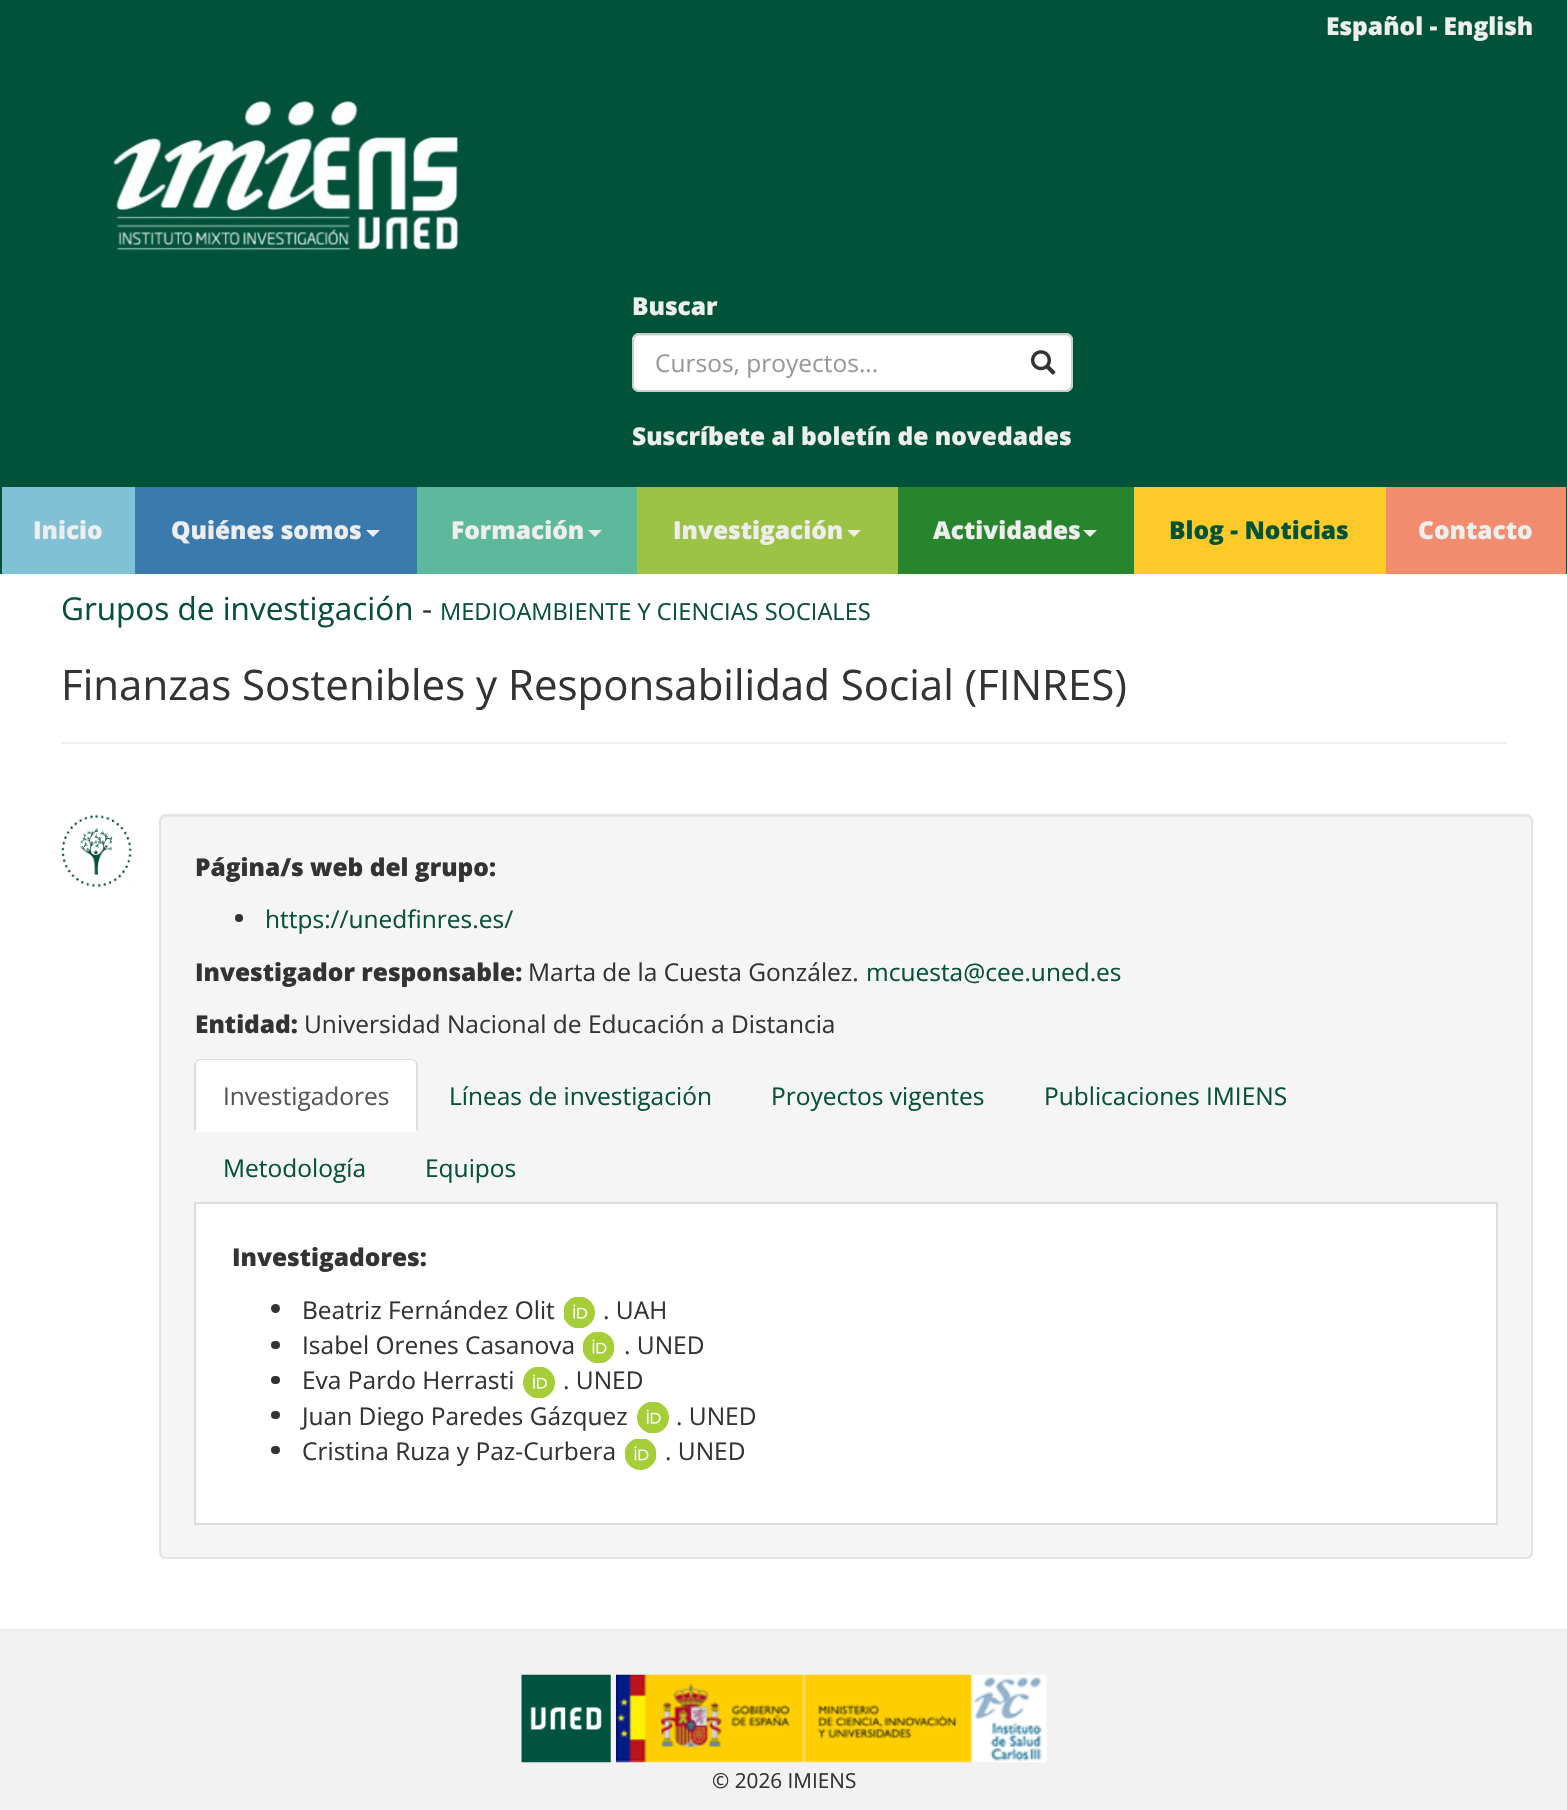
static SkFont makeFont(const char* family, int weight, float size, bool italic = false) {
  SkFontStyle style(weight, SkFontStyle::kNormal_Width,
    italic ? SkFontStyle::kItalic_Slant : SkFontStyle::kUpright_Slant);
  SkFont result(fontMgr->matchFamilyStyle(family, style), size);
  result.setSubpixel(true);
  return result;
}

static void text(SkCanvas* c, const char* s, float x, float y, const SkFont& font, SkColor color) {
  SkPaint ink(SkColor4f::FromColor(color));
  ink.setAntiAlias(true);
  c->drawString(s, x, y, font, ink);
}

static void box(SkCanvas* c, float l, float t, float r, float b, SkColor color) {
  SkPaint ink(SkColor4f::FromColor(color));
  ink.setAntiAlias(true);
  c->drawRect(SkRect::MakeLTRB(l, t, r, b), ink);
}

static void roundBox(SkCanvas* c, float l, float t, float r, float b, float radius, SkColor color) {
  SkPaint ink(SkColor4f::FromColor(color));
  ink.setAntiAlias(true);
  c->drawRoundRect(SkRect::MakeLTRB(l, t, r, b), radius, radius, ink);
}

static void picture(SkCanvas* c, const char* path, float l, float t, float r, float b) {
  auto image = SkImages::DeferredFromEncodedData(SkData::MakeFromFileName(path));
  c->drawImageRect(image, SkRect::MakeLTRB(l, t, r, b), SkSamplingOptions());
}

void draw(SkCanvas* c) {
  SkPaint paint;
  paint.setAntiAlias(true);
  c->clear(0xffffffff);
  box(c, 0, 0, 1567, 574, 0xff005339);
  SkFont face1 = makeFont("Open Sans", 800, 24.5f);
  text(c, "Español - English", 1326, 35, face1, 0xffeeeeee);
  picture(c, "img_01.png", 113, 88, 461, 251);
  text(c, "Buscar", 632, 315, face1, 0xffeeeeee);
  roundBox(c, 632, 333, 1073, 392, 7, 0xffffffff);
  paint.setColor(0xffececec);
  c->drawPath(SkPathBuilder().moveTo(639, 336).lineTo(1066, 336).cubicTo(1069, 336, 1071, 338, 1071, 341).cubicTo(1071, 338, 1070, 334, 1066, 334).lineTo(639, 334).cubicTo(635, 334, 634, 338, 634, 341).cubicTo(634, 338, 636, 336, 639, 336).close().detach(), paint);
  paint.setStyle(SkPaint::kStroke_Style);
  paint.setStrokeWidth(2);
  paint.setColor(0xffcccccc);
  c->drawRoundRect(SkRect::MakeLTRB(633, 334, 1072, 391), 6, 6, paint);
  SkFont face2 = makeFont("Open Sans", 400, 24.5f);
  text(c, "Cursos, proyectos...", 655, 372, face2, 0xff999999);
  picture(c, "img_02.png", 1030, 350, 1056, 375);
  text(c, "Suscríbete al boletín de novedades", 632, 445, face1, 0xffeeeeee);
  box(c, 2, 487, 135, 574, 0xff80c1d5);
  text(c, "Inicio", 33, 539, face1, 0xffeeeeee);
  box(c, 135, 487, 417, 574, 0xff3b7aad);
  text(c, "Quiénes somos", 171, 539, face1, 0xffeeeeee);
  paint.setStyle(SkPaint::kFill_Style);
  paint.setColor(0xffeeeeee);
  c->drawPath(SkPathBuilder().moveTo(366, 530).lineTo(380, 530).lineTo(373, 537).close().detach(), paint);
  box(c, 417, 487, 637, 574, 0xff5eb89c);
  text(c, "Formación", 451, 539, face1, 0xffeeeeee);
  c->drawPath(SkPathBuilder().moveTo(588, 530).lineTo(602, 530).lineTo(595, 537).close().detach(), paint);
  box(c, 637, 487, 898, 574, 0xff9cc346);
  text(c, "Investigación", 673, 539, face1, 0xffeeeeee);
  c->drawPath(SkPathBuilder().moveTo(847, 530).lineTo(861, 530).lineTo(854, 537).close().detach(), paint);
  box(c, 898, 487, 1134, 574, 0xff27852d);
  text(c, "Actividades", 933, 539, face1, 0xffeeeeee);
  c->drawPath(SkPathBuilder().moveTo(1083, 530).lineTo(1097, 530).lineTo(1090, 537).close().detach(), paint);
  box(c, 1134, 487, 1386, 574, 0xfffeca29);
  text(c, "Blog - Noticias", 1169, 539, face1, 0xff005339);
  box(c, 1386, 487, 1566, 574, 0xfff08d6e);
  text(c, "Contacto", 1418, 539, face1, 0xffeeeeee);
  SkFont face3 = makeFont("Open Sans", 400, 31.5f);
  text(c, "Grupos de investigación", 61, 620, face3, 0xff075138);
  text(c, "-", 422, 620, face3, 0xff333333);
  SkFont face4 = makeFont("Open Sans", 400, 23.6f);
  text(c, "MEDIOAMBIENTE Y CIENCIAS SOCIALES", 440, 620, face4, 0xff075138);
  SkFont face5 = makeFont("Open Sans", 400, 42);
  text(c, "Finanzas Sostenibles y Responsabilidad Social (FINRES)", 61, 700, face5, 0xff333333);
  box(c, 61, 742, 1507, 744, 0xffeeeeee);
  picture(c, "img_03.png", 61, 814, 133, 888);
  roundBox(c, 159, 814, 1533, 1559, 7, 0xfff5f5f5);
  paint.setColor(0xffe9e9e9);
  c->drawPath(SkPathBuilder().moveTo(166, 817).lineTo(1526, 817).cubicTo(1529, 817, 1531, 820, 1531, 822).cubicTo(1531, 819, 1529, 816, 1526, 816).lineTo(166, 816).cubicTo(163, 816, 161, 819, 161, 822).cubicTo(161, 820, 163, 817, 166, 817).close().detach(), paint);
  paint.setStyle(SkPaint::kStroke_Style);
  paint.setColor(0xffe3e3e3);
  c->drawRoundRect(SkRect::MakeLTRB(160, 815, 1532, 1558), 6, 6, paint);
  text(c, "Página/s web del grupo:", 195, 876, face1, 0xff333333);
  paint.setStyle(SkPaint::kFill_Style);
  paint.setColor(0xff333333);
  c->drawCircle(239, 918, 4, paint);
  text(c, "https://unedfinres.es/", 265, 928, face2, 0xff075138);
  text(c, "Investigador responsable:", 195, 981, face1, 0xff333333);
  text(c, "Marta de la Cuesta González.", 528, 981, face2, 0xff333333);
  text(c, "mcuesta@cee.uned.es", 866, 981, face2, 0xff075138);
  text(c, "Entidad:", 195, 1033, face1, 0xff333333);
  text(c, "Universidad Nacional de Educación a Distancia", 304, 1033, face2, 0xff333333);
  box(c, 194, 1202, 1498, 1204, 0xffdddddd);
  paint.setColor(0xffffffff);
  c->drawPath(SkPathBuilder().moveTo(201, 1059).lineTo(411, 1059).cubicTo(415, 1059, 418, 1062, 418, 1066).lineTo(418, 1132).lineTo(194, 1132).lineTo(194, 1066).cubicTo(194, 1062, 197, 1059, 201, 1059).close().detach(), paint);
  paint.setColor(0xffdddddd);
  c->drawPath(SkPathBuilder().moveTo(201, 1059).cubicTo(199, 1059, 197, 1060, 196, 1061).lineTo(197, 1062).cubicTo(198, 1061, 200, 1060, 201, 1060).lineTo(411, 1060).cubicTo(413, 1060, 414, 1061, 415, 1062).lineTo(416, 1061).cubicTo(415, 1060, 413, 1059, 411, 1059).close().detach(), paint);
  c->drawPath(SkPathBuilder().moveTo(418, 1132).lineTo(418, 1066).cubicTo(418, 1064, 417, 1062, 416, 1061).lineTo(415, 1062).cubicTo(416, 1063, 416, 1065, 416, 1066).lineTo(416, 1130).close().detach(), paint);
  c->drawPath(SkPathBuilder().moveTo(194, 1064).lineTo(196, 1061).lineTo(197, 1062).cubicTo(196, 1063, 196, 1064, 196, 1066).lineTo(196, 1130).lineTo(194, 1132).close().detach(), paint);
  text(c, "Investigadores", 223, 1105, face2, 0xff555555);
  text(c, "Líneas de investigación", 449, 1105, face2, 0xff075138);
  text(c, "Proyectos vigentes", 771, 1105, face2, 0xff075138);
  text(c, "Publicaciones IMIENS", 1044, 1105, face2, 0xff075138);
  text(c, "Metodología", 223, 1177, face2, 0xff075138);
  text(c, "Equipos", 425, 1177, face2, 0xff075138);
  box(c, 196, 1204, 1496, 1523, 0xffffffff);
  box(c, 1496, 1204, 1498, 1524, 0xffdddddd);
  box(c, 194, 1523, 1498, 1525, 0xffdddddd);
  box(c, 194, 1204, 196, 1524, 0xffdddddd);
  text(c, "Investigadores:", 232, 1266, face1, 0xff333333);
  paint.setColor(0xff333333);
  c->drawCircle(275.5f, 1308.5f, 4.5f, paint);
  text(c, "Beatriz Fernández Olit", 302, 1319, face2, 0xff333333);
  picture(c, "img_04.png", 564, 1297, 595, 1328);
  text(c, ". UAH", 603, 1319, face2, 0xff333333);
  roundBox(c, 271, 1341, 280, 1349, 4, 0xff333333);
  text(c, "Isabel Orenes Casanova", 302, 1354, face2, 0xff333333);
  picture(c, "img_05.png", 583, 1332, 614, 1363);
  text(c, ". UNED", 624, 1354, face2, 0xff333333);
  roundBox(c, 271, 1376, 280, 1384, 4, 0xff333333);
  text(c, "Eva Pardo Herrasti", 302, 1389, face2, 0xff333333);
  picture(c, "img_06.png", 523, 1367, 555, 1398);
  text(c, ". UNED", 563, 1389, face2, 0xff333333);
  roundBox(c, 271, 1411, 280, 1419, 4, 0xff333333);
  text(c, "Juan Diego Paredes Gázquez", 302, 1425, face2, 0xff333333);
  picture(c, "img_07.png", 637, 1402, 669, 1433);
  text(c, ". UNED", 676, 1425, face2, 0xff333333);
  roundBox(c, 271, 1446, 280, 1454, 4, 0xff333333);
  text(c, "Cristina Ruza y Paz-Curbera", 302, 1460, face2, 0xff333333);
  picture(c, "img_08.png", 625, 1439, 656, 1470);
  text(c, ". UNED", 665, 1460, face2, 0xff333333);
  box(c, 0, 1631, 1567, 1810, 0xfff2f2f2);
  box(c, 0, 1629, 1567, 1631, 0xffededed);
  picture(c, "img_09.png", 521, 1674, 611, 1763);
  picture(c, "img_10.png", 616, 1674, 1047, 1763);
  SkFont face6 = makeFont("Open Sans", 400, 20.75f);
  text(c, "© 2026 IMIENS", 712, 1788, face6, 0xff333333);
}
